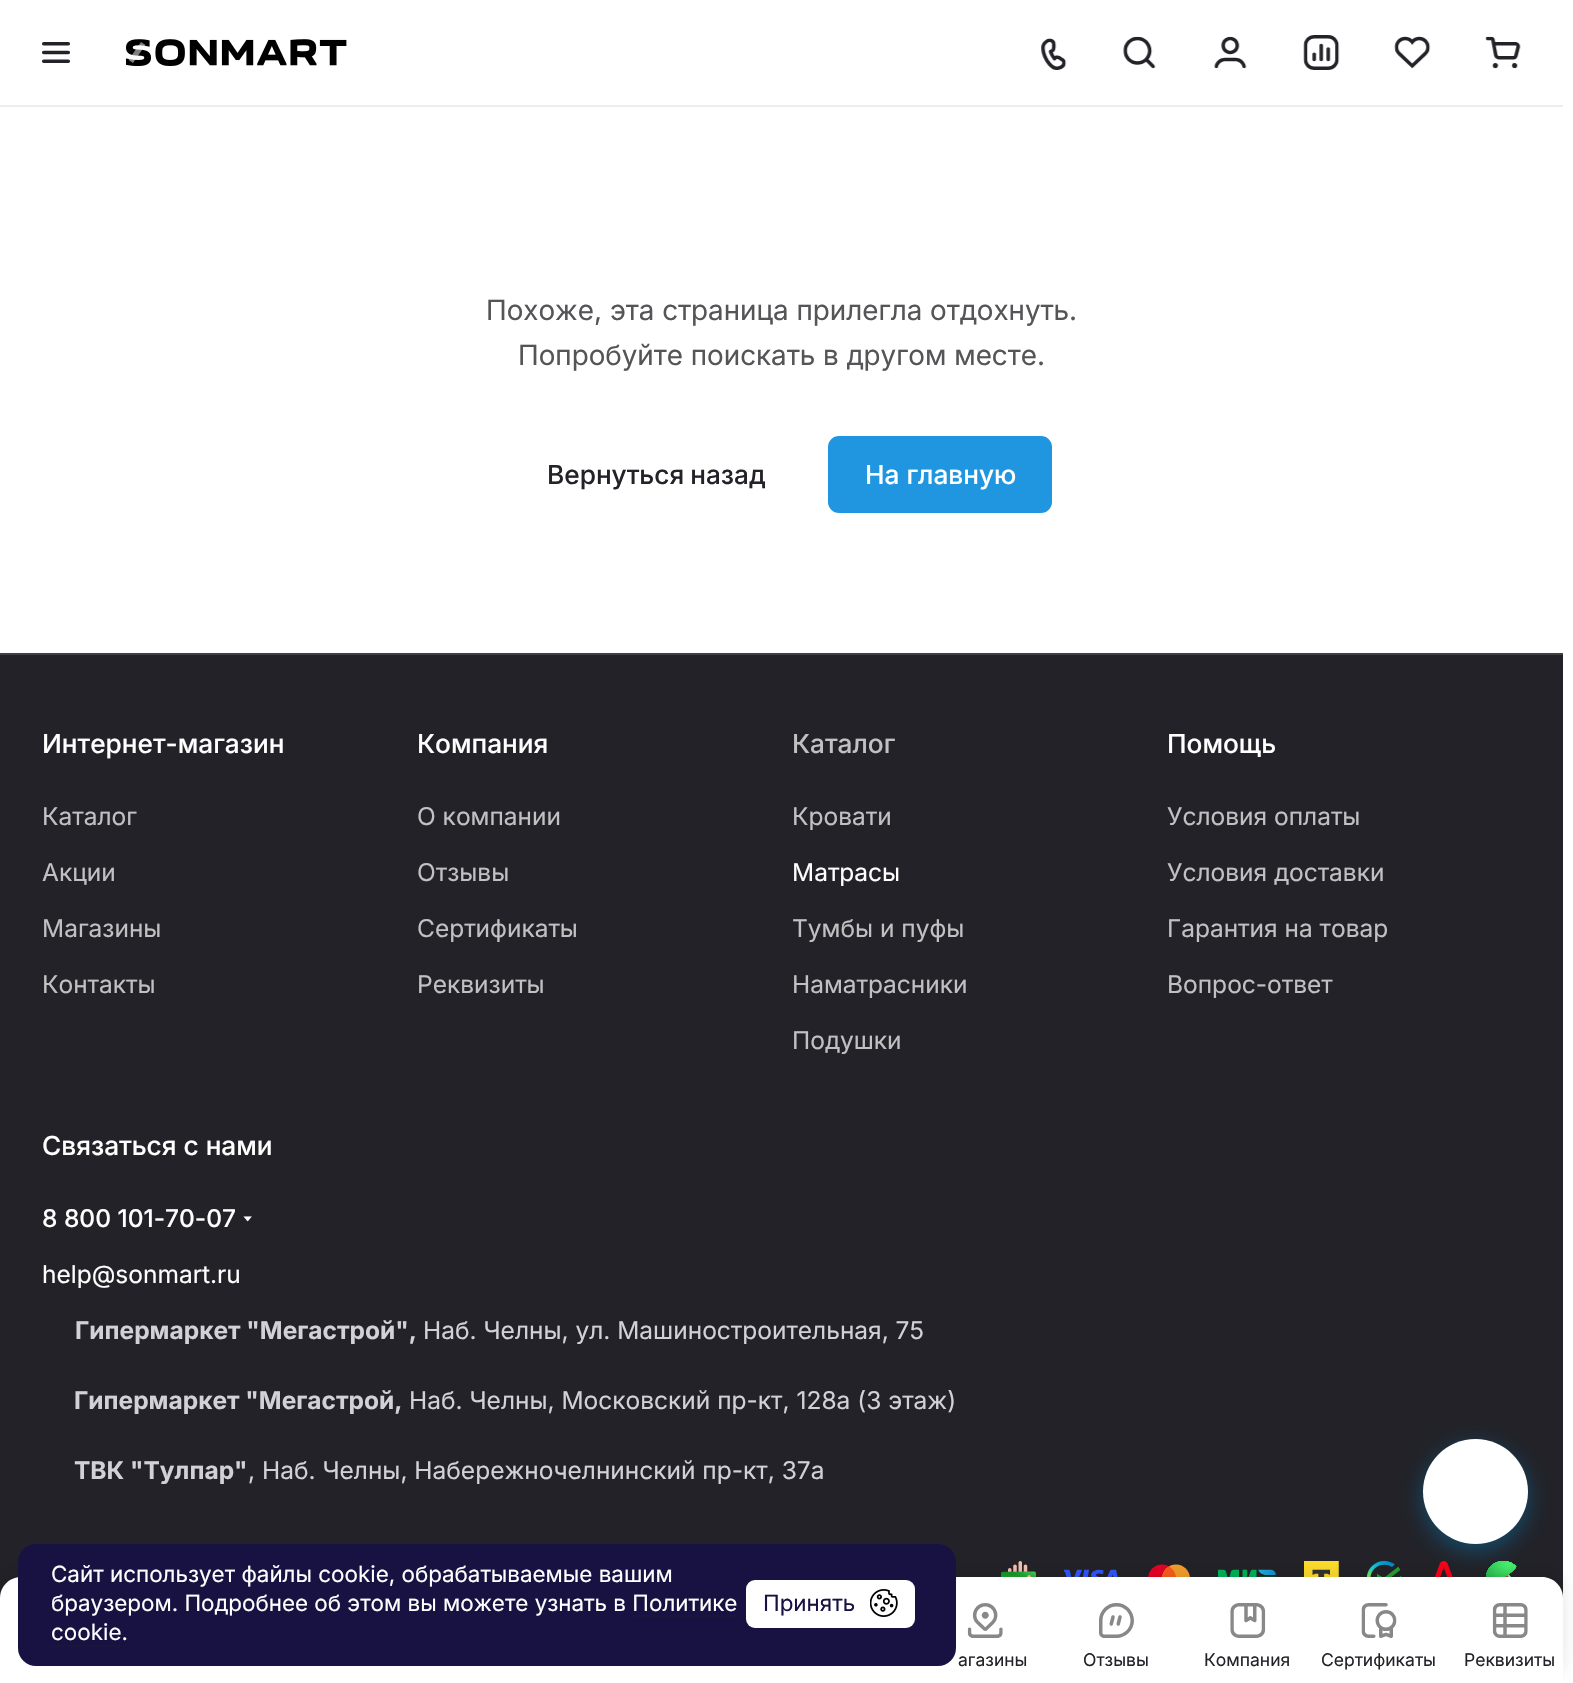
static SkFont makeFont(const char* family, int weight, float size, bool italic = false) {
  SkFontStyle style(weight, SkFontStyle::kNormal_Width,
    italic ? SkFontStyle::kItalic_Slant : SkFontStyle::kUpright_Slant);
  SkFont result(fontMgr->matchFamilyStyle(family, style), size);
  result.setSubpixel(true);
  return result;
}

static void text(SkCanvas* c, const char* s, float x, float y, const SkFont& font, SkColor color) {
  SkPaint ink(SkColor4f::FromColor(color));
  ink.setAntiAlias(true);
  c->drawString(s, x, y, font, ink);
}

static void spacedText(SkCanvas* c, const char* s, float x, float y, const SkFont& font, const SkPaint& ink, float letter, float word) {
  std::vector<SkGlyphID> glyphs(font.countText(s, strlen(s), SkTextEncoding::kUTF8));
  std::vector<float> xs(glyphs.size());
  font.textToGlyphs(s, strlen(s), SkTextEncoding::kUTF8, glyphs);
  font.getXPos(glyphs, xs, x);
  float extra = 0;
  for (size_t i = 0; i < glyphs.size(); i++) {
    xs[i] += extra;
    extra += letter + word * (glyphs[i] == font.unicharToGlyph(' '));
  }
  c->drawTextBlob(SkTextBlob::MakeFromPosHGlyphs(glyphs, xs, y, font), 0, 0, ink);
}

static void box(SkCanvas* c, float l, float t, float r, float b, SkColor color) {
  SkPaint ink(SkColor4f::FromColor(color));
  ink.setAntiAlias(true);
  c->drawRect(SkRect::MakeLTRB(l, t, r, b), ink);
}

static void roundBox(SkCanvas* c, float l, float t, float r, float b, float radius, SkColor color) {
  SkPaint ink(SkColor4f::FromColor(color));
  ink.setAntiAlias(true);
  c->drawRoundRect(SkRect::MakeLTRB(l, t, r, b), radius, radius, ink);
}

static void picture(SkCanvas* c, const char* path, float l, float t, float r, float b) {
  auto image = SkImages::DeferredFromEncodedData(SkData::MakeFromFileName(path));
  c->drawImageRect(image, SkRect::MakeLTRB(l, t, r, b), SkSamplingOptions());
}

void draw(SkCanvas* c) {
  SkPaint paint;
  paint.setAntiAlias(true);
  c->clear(0xffffffff);
  box(c, 0, 105, 1563, 107, 0xffebecef);
  picture(c, "img_01.png", 42, 42, 70, 63);
  picture(c, "img_02.png", 126, 39, 347, 66);
  paint.setColor(0x80ffffff);
  c->drawPath(SkPathBuilder().moveTo(145.5f, 45).lineTo(133, 63).lineTo(128.5f, 60).lineTo(141, 42).close().detach(), paint);
  picture(c, "img_03.png", 1041, 38, 1067, 70);
  picture(c, "img_04.png", 1123, 36, 1156, 69);
  picture(c, "img_05.png", 1214, 36, 1247, 69);
  picture(c, "img_06.png", 1303, 35, 1340, 70);
  picture(c, "img_07.png", 1394, 36, 1431, 69);
  picture(c, "img_08.png", 1485, 36, 1521, 69);
  SkFont face1 = makeFont("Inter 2", 400, 28);
  text(c, "Похоже", 486, 320, face1, 0xff555558);
  SkFont face2 = makeFont("Inter", 400, 28);
  text(c, ",", 594, 320, face2, 0xff555558);
  text(c, "эта страница прилегла отдохнуть", 610, 320, face1, 0xff555558);
  text(c, ".", 1069, 320, face2, 0xff555558);
  text(c, "Попробуйте поискать в другом месте", 518, 365, face1, 0xff555558);
  text(c, ".", 1037, 365, face2, 0xff555558);
  SkFont face3 = makeFont("Inter", 500, 26.25f);
  paint.setColor(0xff222228);
  spacedText(c, "Вернуться назад", 547, 484, face3, paint, 0, -1);
  paint.setColor(0xff2196e0);
  c->drawRoundRect(SkRect::MakeLTRB(829, 437, 1051, 512), 10, 10, paint);
  paint.setStyle(SkPaint::kStroke_Style);
  paint.setStrokeWidth(2);
  c->drawRoundRect(SkRect::MakeLTRB(829, 437, 1051, 512), 10, 10, paint);
  text(c, "На главную", 865, 484, face3, 0xffffffff);
  box(c, 0, 655, 1563, 1598, 0xff222228);
  box(c, 0, 653, 1563, 655, 0xff3f3f45);
  text(c, "Интернет-магазин", 42, 753, face3, 0xffffffff);
  SkFont face4 = makeFont("Inter", 400, 24.5f);
  text(c, "Каталог", 42, 825, face4, 0xffc1c1c3);
  text(c, "Акции", 42, 881, face4, 0xffc1c1c3);
  text(c, "Магазины", 42, 937, face4, 0xffc1c1c3);
  text(c, "Контакты", 42, 993, face4, 0xffc1c1c3);
  text(c, "Компания", 417, 753, face3, 0xffffffff);
  text(c, "О компании", 417, 825, face4, 0xffc1c1c3);
  text(c, "Отзывы", 417, 881, face4, 0xffc1c1c3);
  text(c, "Сертификаты", 417, 937, face4, 0xffc1c1c3);
  text(c, "Реквизиты", 417, 993, face4, 0xffc1c1c3);
  text(c, "Каталог", 792, 753, face3, 0xffc1c1c3);
  text(c, "Кровати", 792, 825, face4, 0xffc1c1c3);
  text(c, "Матрасы", 792, 881, face4, 0xffffffff);
  text(c, "Тумбы и пуфы", 792, 937, face4, 0xffc1c1c3);
  text(c, "Наматрасники", 792, 993, face4, 0xffc1c1c3);
  text(c, "Подушки", 792, 1049, face4, 0xffc1c1c3);
  text(c, "Помощь", 1167, 753, face3, 0xffffffff);
  text(c, "Условия оплаты", 1167, 825, face4, 0xffc1c1c3);
  text(c, "Условия доставки", 1167, 881, face4, 0xffc1c1c3);
  text(c, "Гарантия на товар", 1167, 937, face4, 0xffc1c1c3);
  text(c, "Вопрос-ответ", 1167, 993, face4, 0xffc1c1c3);
  text(c, "Связаться с нами", 42, 1155, face3, 0xffffffff);
  SkFont face5 = makeFont("Inter", 500, 24.5f);
  text(c, "8 800 101-70-07", 42, 1227, face5, 0xffffffff);
  picture(c, "img_09.png", 243, 1216, 252, 1222);
  text(c, "help@sonmart.ru", 42, 1283, face4, 0xffffffff);
  SkFont face6 = makeFont("Inter", 700, 24.5f);
  text(c, "Гипермаркет \"Мегастрой\",", 75, 1339, face6, 0xffd1d1d7);
  text(c, "Наб. Челны, ул. Машиностроительная, 75", 423, 1339, face4, 0xffd1d1d7);
  text(c, "Гипермаркет \"Мегастрой,", 74, 1409, face6, 0xffd1d1d7);
  text(c, "Наб. Челны, Московский пр-кт, 128а (3 этаж)", 409, 1409, face4, 0xffd1d1d7);
  text(c, "ТВК \"Тулпар\"", 74, 1479, face6, 0xffd1d1d7);
  text(c, ", Наб. Челны, Набережночелнинский пр-кт, 37а", 248, 1479, face4, 0xffd1d1d7);
  picture(c, "img_10.png", 1001, 1561, 1036, 1577);
  picture(c, "img_11.png", 1064, 1569, 1118, 1577);
  picture(c, "img_12.png", 1148, 1564, 1190, 1577);
  picture(c, "img_13.png", 1218, 1569, 1276, 1577);
  picture(c, "img_14.png", 1304, 1561, 1339, 1577);
  picture(c, "img_15.png", 1367, 1561, 1402, 1577);
  picture(c, "img_16.png", 1435, 1561, 1453, 1577);
  picture(c, "img_17.png", 1486, 1561, 1517, 1577);
  paint.setStyle(SkPaint::kFill_Style);
  paint.setColor(0x1a000000);
  paint.setMaskFilter(SkMaskFilter::MakeBlur(kNormal_SkBlurStyle, 9));
  c->drawRoundRect(SkRect::MakeLTRB(0, 1572, 1563, 1678), 21, 21, paint);
  paint.setMaskFilter(nullptr);
  paint.setColor(0xffffffff);
  c->drawPath(SkPathBuilder().moveTo(21, 1577).lineTo(1542, 1577).cubicTo(1553.5f, 1577, 1563, 1586.5f, 1563, 1598).lineTo(1563, 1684).lineTo(0, 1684).lineTo(0, 1598).cubicTo(0, 1586.5f, 9.5f, 1577, 21, 1577).close().detach(), paint);
  paint.setColor(0x660088cc);
  paint.setMaskFilter(SkMaskFilter::MakeBlur(kNormal_SkBlurStyle, 10.5f));
  c->drawRoundRect(SkRect::MakeLTRB(1423, 1446, 1528, 1551), 52.5f, 52.5f, paint);
  paint.setMaskFilter(nullptr);
  paint.setColor(0xffffffff);
  c->drawCircle(1475.5f, 1491.5f, 52.5f, paint);
  picture(c, "img_18.png", 967, 1603, 1003, 1638);
  SkFont face7 = makeFont("Inter", 400, 17.5f);
  text(c, "агазины", 958, 1666, face7, 0xff222228);
  picture(c, "img_19.png", 1099, 1603, 1134, 1638);
  text(c, "Отзывы", 1083, 1666, face7, 0xff222228);
  picture(c, "img_20.png", 1230, 1603, 1266, 1638);
  text(c, "Компания", 1204, 1666, face7, 0xff222228);
  picture(c, "img_21.png", 1361, 1603, 1397, 1638);
  text(c, "Сертификаты", 1321, 1666, face7, 0xff222228);
  picture(c, "img_22.png", 1492, 1603, 1528, 1638);
  text(c, "Реквизиты", 1464, 1666, face7, 0xff222228);
  roundBox(c, 18, 1544, 956, 1666, 18, 0xff171241);
  SkFont face8 = makeFont("Inter", 400, 22.4f);
  text(c, "Сайт использует файлы cookie, обрабатываемые вашим", 51, 1582, face8, 0xffffffff);
  text(c, "браузером. Подробнее об этом вы можете узнать в Политике", 51, 1611, face8, 0xffffffff);
  text(c, "cookie.", 51, 1640, face8, 0xffffffff);
  box(c, 632, 1615, 737, 1617, 0xff19153d);
  box(c, 51, 1645, 121, 1647, 0xff19153d);
  roundBox(c, 746, 1580, 915, 1628, 9, 0xffffffff);
  text(c, "Принять", 763, 1611, face8, 0xff171241);
  picture(c, "img_23.png", 870, 1589, 898, 1617);
}
